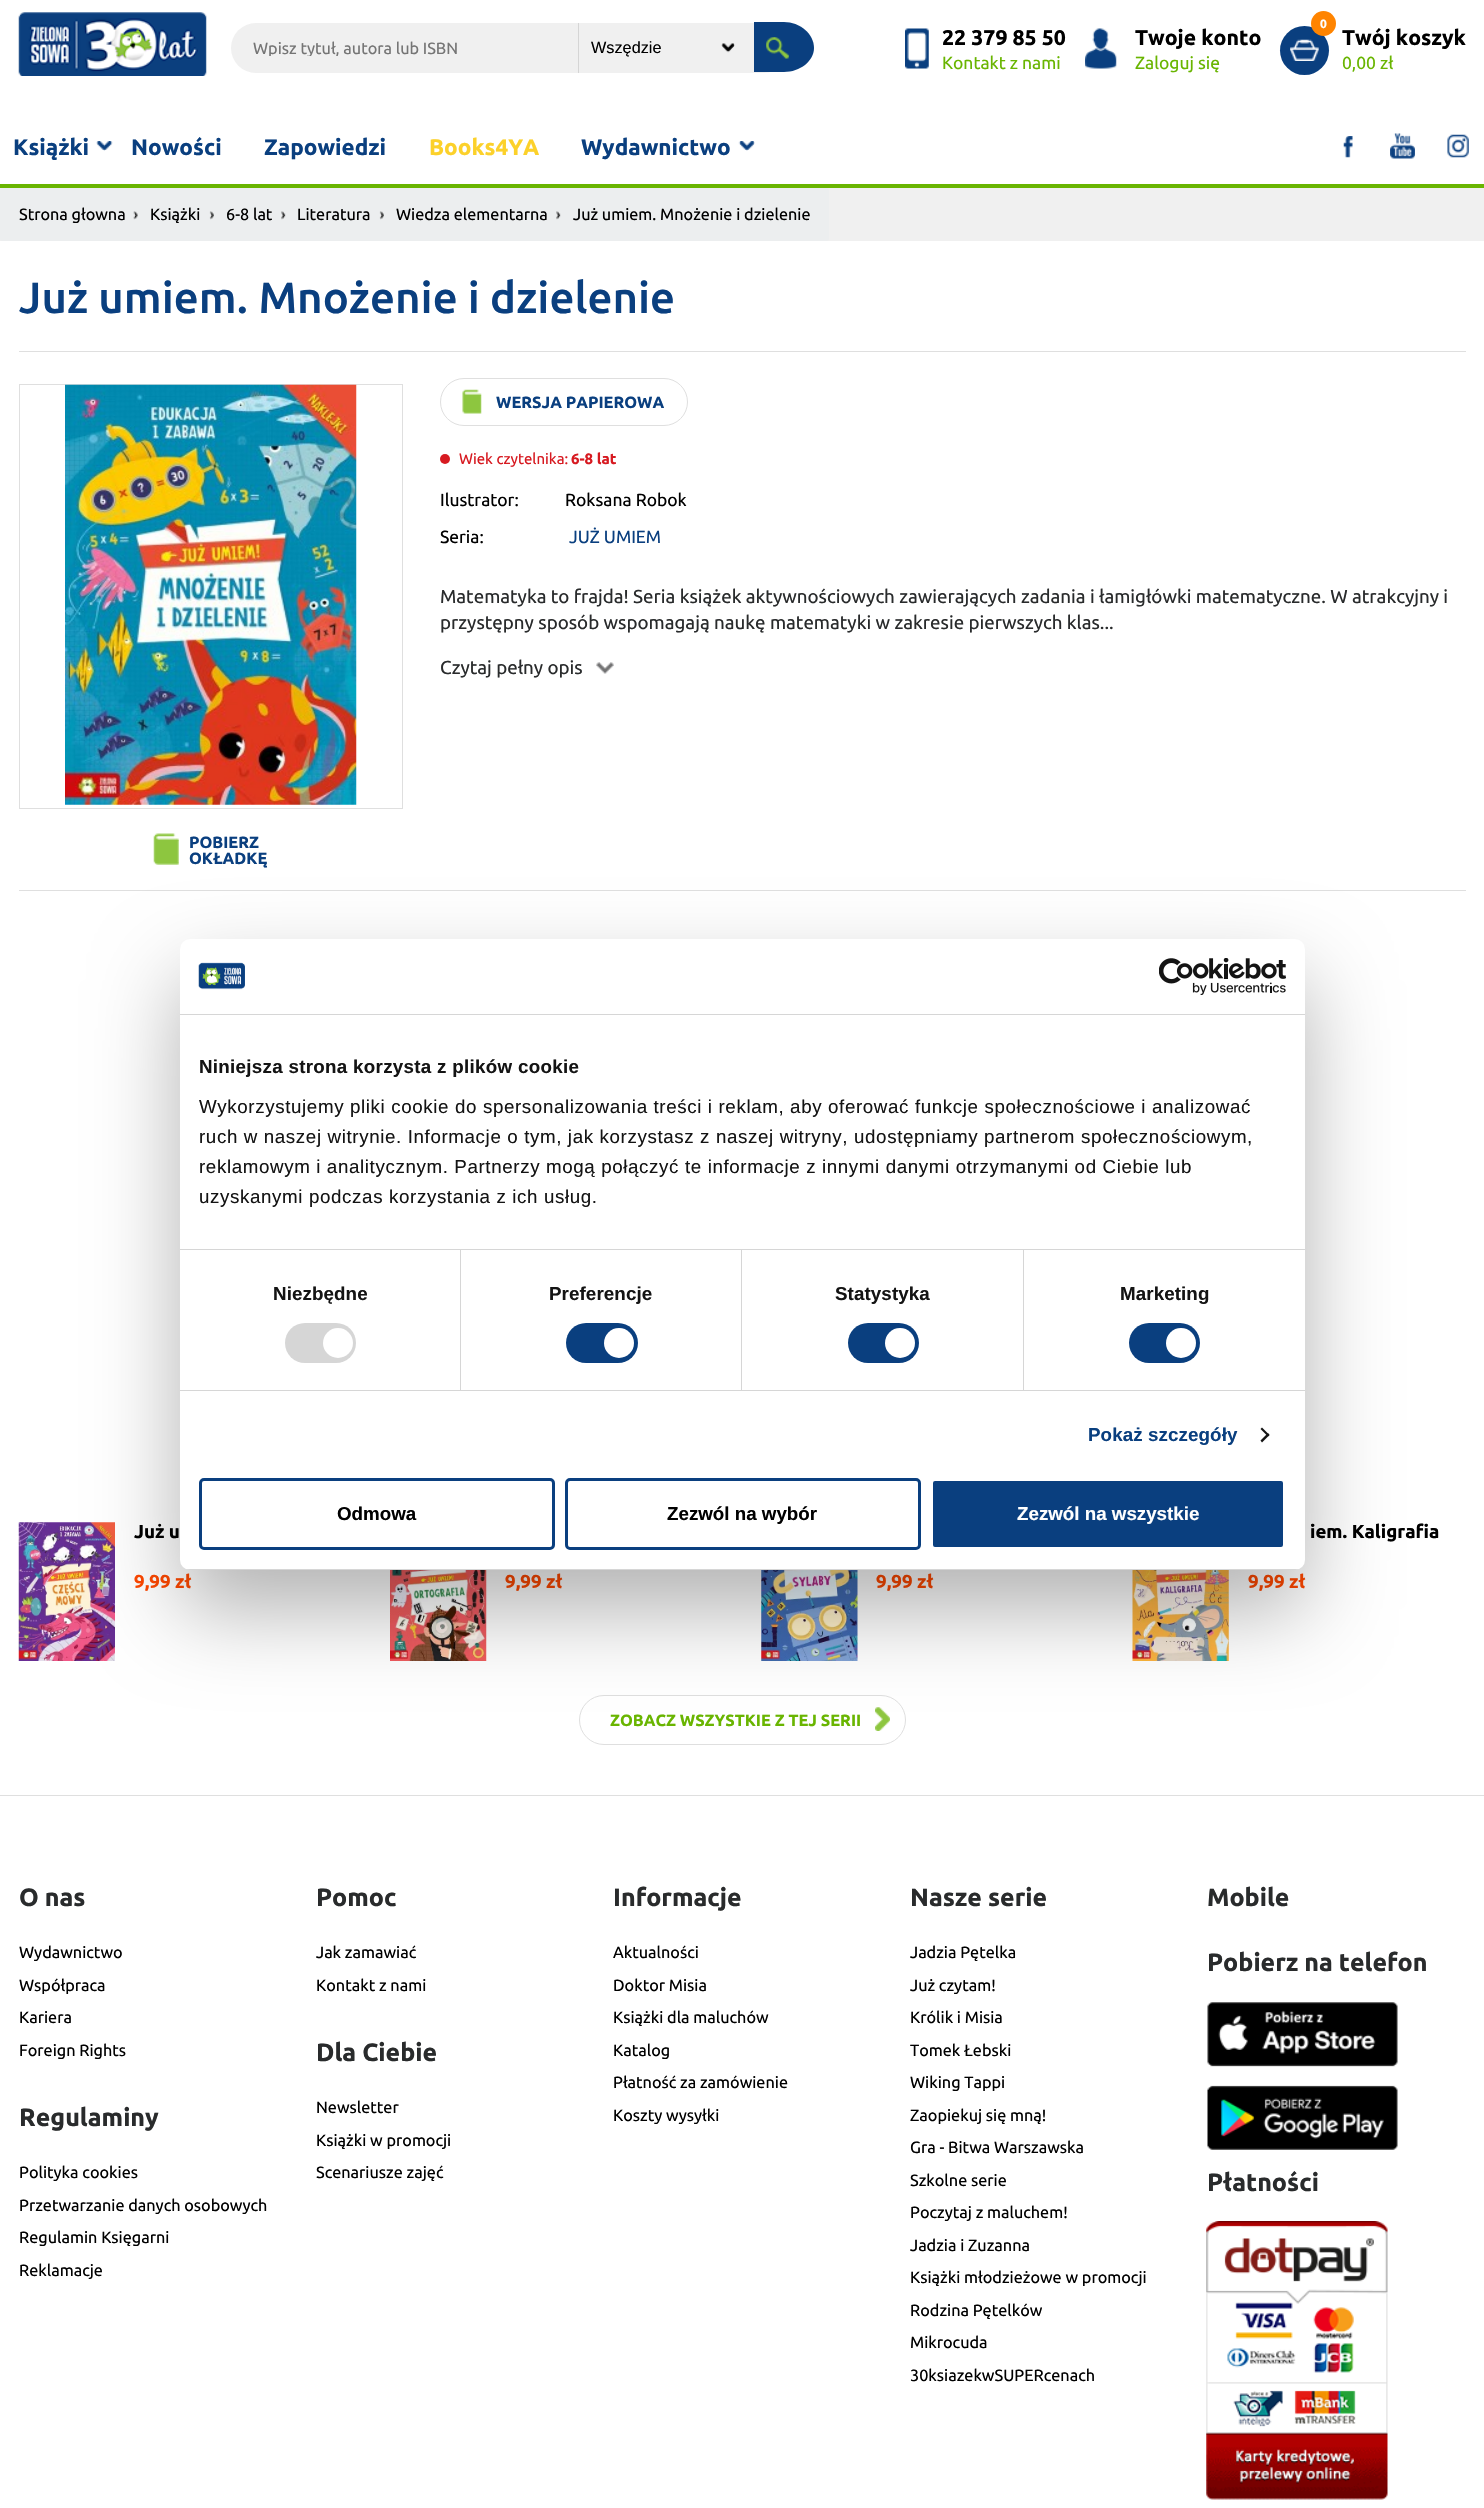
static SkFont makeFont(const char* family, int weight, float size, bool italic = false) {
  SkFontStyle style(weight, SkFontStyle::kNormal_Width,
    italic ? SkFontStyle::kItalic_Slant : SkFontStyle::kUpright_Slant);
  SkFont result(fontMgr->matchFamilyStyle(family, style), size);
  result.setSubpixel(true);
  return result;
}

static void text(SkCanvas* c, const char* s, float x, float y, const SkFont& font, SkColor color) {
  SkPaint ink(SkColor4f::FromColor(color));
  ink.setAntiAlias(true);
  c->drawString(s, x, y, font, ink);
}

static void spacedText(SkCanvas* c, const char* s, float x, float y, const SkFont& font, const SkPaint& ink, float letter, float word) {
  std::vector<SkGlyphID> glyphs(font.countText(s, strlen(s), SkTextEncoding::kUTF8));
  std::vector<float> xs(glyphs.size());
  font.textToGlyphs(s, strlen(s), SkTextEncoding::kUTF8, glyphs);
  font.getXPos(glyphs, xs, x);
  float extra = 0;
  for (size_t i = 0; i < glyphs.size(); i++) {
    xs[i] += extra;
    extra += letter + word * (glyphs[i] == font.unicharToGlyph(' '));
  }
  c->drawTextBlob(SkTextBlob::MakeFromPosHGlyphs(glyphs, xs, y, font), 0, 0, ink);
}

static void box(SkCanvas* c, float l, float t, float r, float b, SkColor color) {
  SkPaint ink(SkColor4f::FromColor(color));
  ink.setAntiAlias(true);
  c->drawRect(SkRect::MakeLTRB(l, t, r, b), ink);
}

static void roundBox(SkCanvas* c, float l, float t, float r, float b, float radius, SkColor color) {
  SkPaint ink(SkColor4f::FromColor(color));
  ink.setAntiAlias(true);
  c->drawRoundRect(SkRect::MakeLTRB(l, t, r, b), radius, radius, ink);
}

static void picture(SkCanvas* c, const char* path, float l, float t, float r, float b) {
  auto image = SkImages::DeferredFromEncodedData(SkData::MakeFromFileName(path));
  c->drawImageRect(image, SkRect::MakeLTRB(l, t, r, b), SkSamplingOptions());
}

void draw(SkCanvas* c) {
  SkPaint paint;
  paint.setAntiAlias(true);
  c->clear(0xffffffff);
  picture(c, "img_01.png", 18, 12, 207, 76);
  roundBox(c, 231, 23, 789, 73, 25, 0xfff0f0f0);
  box(c, 578, 23, 579, 73, 0xffd5d5d5);
  c->save();
  c->clipRect(SkRect::MakeLTRB(253, 39, 569, 56));
  SkFont face1 = makeFont("Ubuntu", 400, 16.25f);
  text(c, "Wpisz tytuł, autora lub ISBN", 253, 54, face1, 0xff757575);
  c->restore();
  picture(c, "img_02.png", 721, 43, 735, 53);
  SkFont face2 = makeFont("Liberation Sans", 400, 16.25f);
  text(c, "Wszędzie", 591, 53, face2, 0xff000000);
  paint.setColor(0xff0a3f7f);
  c->drawPath(SkPathBuilder().moveTo(754, 22).lineTo(784, 22).cubicTo(800, 22, 814, 34, 814, 48).cubicTo(814, 61, 800, 72, 784, 72).lineTo(754, 72).close().detach(), paint);
  picture(c, "img_03.png", 766, 37, 789, 59);
  picture(c, "img_04.png", 905, 28, 929, 69);
  SkFont face3 = makeFont("Ubuntu", 700, 21.25f);
  text(c, "22 379 85 50", 942, 45, face3, 0xff000000);
  SkFont face4 = makeFont("Ubuntu", 400, 17.5f);
  text(c, "Kontakt z nami", 942, 69, face4, 0xff69b501);
  picture(c, "img_05.png", 1085, 28, 1117, 69);
  text(c, "Twoje konto", 1135, 45, face3, 0xff000000);
  text(c, "Zaloguj się", 1135, 69, face4, 0xff69b501);
  c->drawCircle(1304.5f, 50.5f, 24.5f, paint);
  paint.setColor(0xffff8400);
  c->drawCircle(1323.5f, 23.5f, 12.5f, paint);
  SkFont face5 = makeFont("Ubuntu", 700, 12);
  text(c, "0", 1320, 28, face5, 0xffffffff);
  text(c, "Twój koszyk", 1342, 45, face3, 0xff000000);
  picture(c, "img_06.png", 1290, 39, 1319, 61);
  text(c, "0,00 zł", 1342, 69, face4, 0xff69b501);
  box(c, 0, 184, 1484, 188, 0xff69b501);
  SkFont face6 = makeFont("Ubuntu", 700, 22.5f);
  text(c, "Książki", 13, 155, face6, 0xff0a3f7f);
  picture(c, "img_07.png", 96, 141, 113, 151);
  text(c, "Nowości", 131, 155, face6, 0xff0a3f7f);
  text(c, "Zapowiedzi", 264, 155, face6, 0xff0a3f7f);
  text(c, "Books4YA", 429, 155, face6, 0xfffcd12a);
  text(c, "Wydawnictwo", 581, 155, face6, 0xff0a3f7f);
  picture(c, "img_08.png", 738, 141, 755, 151);
  picture(c, "img_09.png", 1343, 136, 1353, 158);
  picture(c, "img_10.png", 1390, 133, 1415, 159);
  picture(c, "img_11.png", 1447, 134, 1469, 158);
  box(c, 0, 188, 1484, 241, 0xfff0f0f0);
  roundBox(c, 0, 188, 829, 241, 3, 0xffeceeef);
  text(c, "Strona głowna", 19, 220, face1, 0xff000000);
  picture(c, "img_12.png", 133, 211, 138, 220);
  text(c, "Książki", 150, 220, face1, 0xff000000);
  picture(c, "img_13.png", 209, 211, 214, 220);
  text(c, "6-8 lat", 226, 220, face1, 0xff000000);
  picture(c, "img_14.png", 281, 211, 286, 220);
  text(c, "Literatura", 297, 220, face1, 0xff000000);
  picture(c, "img_15.png", 379, 211, 384, 220);
  text(c, "Wiedza elementarna", 396, 220, face1, 0xff000000);
  picture(c, "img_14.png", 556, 211, 561, 220);
  text(c, "Już umiem. Mnożenie i dzielenie", 573, 220, face1, 0xff000000);
  SkFont face7 = makeFont("Ubuntu", 500, 43.75f);
  text(c, "Już umiem. Mnożenie i dzielenie", 19, 313, face7, 0xff0a3f7f);
  box(c, 19, 351, 1466, 352, 0xffdfdfdf);
  paint.setStyle(SkPaint::kStroke_Style);
  paint.setStrokeWidth(1);
  paint.setColor(0xffdfdfdf);
  c->drawRoundRect(SkRect::MakeLTRB(440.5f, 378.5f, 687.5f, 425.5f), 23.5f, 23.5f, paint);
  picture(c, "img_16.png", 462, 389, 482, 414);
  SkFont face8 = makeFont("Ubuntu", 700, 16.25f);
  text(c, "WERSJA PAPIEROWA", 496, 408, face8, 0xff0a3f7f);
  paint.setStyle(SkPaint::kFill_Style);
  paint.setColor(0xffd71a21);
  c->drawCircle(445, 459, 5, paint);
  SkFont face9 = makeFont("Ubuntu", 400, 15);
  text(c, "Wiek czytelnika:", 459, 464, face9, 0xffd71a21);
  SkFont face10 = makeFont("Ubuntu", 700, 15);
  text(c, "6-8 lat", 571, 464, face10, 0xffd71a21);
  text(c, "Ilustrator:", 440, 506, face4, 0xff000000);
  text(c, "Roksana Robok", 565, 506, face4, 0xff000000);
  text(c, "Seria:", 440, 543, face4, 0xff000000);
  text(c, "JUŻ UMIEM", 569, 543, face4, 0xff0a3f7f);
  SkFont face11 = makeFont("Ubuntu", 400, 18.75f);
  text(c, "Matematyka to frajda! Seria książek aktywnościowych zawierających zadania i łamigłówki matematyczne. W atrakcyjny i", 440, 603, face11, 0xff292b2c);
  text(c, "przystępny sposób wspomagają naukę matematyki w zakresie pierwszych klas...", 440, 629, face11, 0xff292b2c);
  text(c, "Czytaj pełny opis", 440, 674, face11, 0xff292b2c);
  picture(c, "img_17.png", 596, 662, 614, 674);
  paint.setStyle(SkPaint::kStroke_Style);
  paint.setColor(0xffdfdfdf);
  c->drawRect(SkRect::MakeLTRB(19.5f, 384.5f, 402.5f, 808.5f), paint);
  picture(c, "img_18.png", 65, 384, 357, 805);
  picture(c, "img_19.png", 153, 833, 179, 865);
  text(c, "POBIERZ", 189, 848, face8, 0xff0a3f7f);
  text(c, "OKŁADKĘ", 189, 864, face8, 0xff0a3f7f);
  box(c, 19, 890, 1466, 891, 0xffdfdfdf);
  box(c, 0, 1795, 1484, 1796, 0xffdfdfdf);
  picture(c, "img_20.png", 18, 1522, 115, 1661);
  SkFont face12 = makeFont("Ubuntu", 700, 18.75f);
  text(c, "Już u", 134, 1538, face12, 0xff000000);
  text(c, "9,99 zł", 134, 1588, face12, 0xffff4800);
  picture(c, "img_21.png", 390, 1570, 487, 1661);
  text(c, "9,99 zł", 505, 1588, face12, 0xffff4800);
  picture(c, "img_22.png", 761, 1570, 858, 1661);
  text(c, "9,99 zł", 876, 1588, face12, 0xffff4800);
  text(c, "iem. Kaligrafia", 1310, 1538, face12, 0xff000000);
  text(c, "9,99 zł", 1248, 1588, face12, 0xffff4800);
  picture(c, "img_23.png", 1132, 1570, 1229, 1661);
  c->drawRoundRect(SkRect::MakeLTRB(579.5f, 1695.5f, 905.5f, 1744.5f), 24.5f, 24.5f, paint);
  text(c, "ZOBACZ WSZYSTKIE Z TEJ SERII", 610, 1726, face8, 0xff69b501);
  picture(c, "img_24.png", 875, 1707, 890, 1731);
  SkFont face13 = makeFont("Ubuntu", 700, 25);
  text(c, "O nas", 19, 1906, face13, 0xff292b2c);
  text(c, "Wydawnictwo", 19, 1958, face1, 0xff000000);
  text(c, "Współpraca", 19, 1991, face1, 0xff000000);
  text(c, "Kariera", 19, 2023, face1, 0xff000000);
  text(c, "Foreign Rights", 19, 2056, face1, 0xff000000);
  text(c, "Regulaminy", 19, 2126, face13, 0xff292b2c);
  text(c, "Polityka cookies", 19, 2178, face1, 0xff000000);
  text(c, "Przetwarzanie danych osobowych", 19, 2211, face1, 0xff000000);
  text(c, "Regulamin Księgarni", 19, 2243, face1, 0xff000000);
  text(c, "Reklamacje", 19, 2276, face1, 0xff000000);
  text(c, "Pomoc", 316, 1906, face13, 0xff292b2c);
  text(c, "Jak zamawiać", 316, 1958, face1, 0xff000000);
  text(c, "Kontakt z nami", 316, 1991, face1, 0xff000000);
  text(c, "Dla Ciebie", 316, 2061, face13, 0xff292b2c);
  text(c, "Newsletter", 316, 2113, face1, 0xff000000);
  text(c, "Książki w promocji", 316, 2146, face1, 0xff000000);
  text(c, "Scenariusze zajęć", 316, 2178, face1, 0xff000000);
  text(c, "Informacje", 613, 1906, face13, 0xff292b2c);
  text(c, "Aktualności", 613, 1958, face1, 0xff000000);
  text(c, "Doktor Misia", 613, 1991, face1, 0xff000000);
  text(c, "Książki dla maluchów", 613, 2023, face1, 0xff000000);
  text(c, "Katalog", 613, 2056, face1, 0xff000000);
  text(c, "Płatność za zamówienie", 613, 2088, face1, 0xff000000);
  text(c, "Koszty wysyłki", 613, 2121, face1, 0xff000000);
  text(c, "Nasze serie", 910, 1906, face13, 0xff292b2c);
  text(c, "Jadzia Pętelka", 910, 1958, face1, 0xff000000);
  text(c, "Już czytam!", 910, 1991, face1, 0xff000000);
  text(c, "Królik i Misia", 910, 2023, face1, 0xff000000);
  text(c, "Tomek Łebski", 910, 2056, face1, 0xff000000);
  text(c, "Wiking Tappi", 910, 2088, face1, 0xff000000);
  text(c, "Zaopiekuj się mną!", 910, 2121, face1, 0xff000000);
  text(c, "Gra - Bitwa Warszawska", 910, 2153, face1, 0xff000000);
  text(c, "Szkolne serie", 910, 2186, face1, 0xff000000);
  text(c, "Poczytaj z maluchem!", 910, 2218, face1, 0xff000000);
  text(c, "Jadzia i Zuzanna", 910, 2251, face1, 0xff000000);
  text(c, "Książki młodzieżowe w promocji", 910, 2283, face1, 0xff000000);
  text(c, "Rodzina Pętelków", 910, 2316, face1, 0xff000000);
  text(c, "Mikrocuda", 910, 2348, face1, 0xff000000);
  text(c, "30ksiazekwSUPERcenach", 910, 2381, face1, 0xff000000);
  text(c, "Mobile", 1207, 1906, face13, 0xff292b2c);
  text(c, "Pobierz na telefon", 1207, 1971, face13, 0xff292b2c);
  picture(c, "img_25.png", 1207, 2002, 1398, 2067);
  picture(c, "img_26.png", 1207, 2085, 1398, 2150);
  text(c, "Płatności", 1207, 2191, face13, 0xff292b2c);
  picture(c, "img_27.png", 1206, 2221, 1388, 2500);
  paint.setStyle(SkPaint::kFill_Style);
  paint.setColor(0x4d000000);
  paint.setMaskFilter(SkMaskFilter::MakeBlur(kNormal_SkBlurStyle, 42.5f));
  c->drawRoundRect(SkRect::MakeLTRB(180, 979, 1305, 1610), 10, 10, paint);
  paint.setMaskFilter(nullptr);
  roundBox(c, 180, 939, 1305, 1570, 10, 0xffffffff);
  box(c, 180, 1014, 1305, 1015, 0xffd6d6d6);
  picture(c, "img_28.png", 198, 962, 245, 990);
  picture(c, "img_29.png", 1159, 958, 1286, 995);
  box(c, 180, 1249, 1305, 1250, 0xffd6d6d6);
  SkFont face14 = makeFont("Liberation Sans", 700, 18.75f);
  paint.setColor(0xff141414);
  spacedText(c, "Niniejsza strona korzysta z plików cookie", 199, 1073, face14, paint, 0.3f, 0);
  SkFont face15 = makeFont("Liberation Sans", 400, 18.75f);
  spacedText(c, "Wykorzystujemy pliki cookie do spersonalizowania treści i reklam, aby oferować funkcje społecznościowe i analizować", 199, 1113, face15, paint, 0.62f, 0);
  spacedText(c, "ruch w naszej witrynie. Informacje o tym, jak korzystasz z naszej witryny, udostępniamy partnerom społecznościowym,", 199, 1143, face15, paint, 0.62f, 0);
  spacedText(c, "reklamowym i analitycznym. Partnerzy mogą połączyć te informacje z innymi danymi otrzymanymi od Ciebie lub", 199, 1173, face15, paint, 0.62f, 0);
  spacedText(c, "uzyskanymi podczas korzystania z ich usług.", 199, 1203, face15, paint, 0.62f, 0);
  box(c, 180, 1390, 1305, 1391, 0xffd6d6d6);
  box(c, 460, 1250, 461, 1390, 0xffd6d6d6);
  spacedText(c, "Niezbędne", 273, 1300, face14, paint, 0.1f, 0);
  roundBox(c, 285, 1323, 356, 1363, 20, 0xffd6d6d6);
  paint.setColor(0xffffffff);
  c->drawCircle(338, 1343, 15, paint);
  box(c, 741, 1250, 742, 1390, 0xffd6d6d6);
  paint.setColor(0xff141414);
  spacedText(c, "Preferencje", 549, 1300, face14, paint, 0.1f, 0);
  roundBox(c, 566, 1323, 638, 1363, 20, 0xff0a3f7f);
  paint.setColor(0xffffffff);
  c->drawCircle(619, 1343, 15, paint);
  box(c, 1023, 1250, 1024, 1390, 0xffd6d6d6);
  paint.setColor(0xff141414);
  spacedText(c, "Statystyka", 835, 1300, face14, paint, 0.1f, 0);
  roundBox(c, 848, 1323, 919, 1363, 20, 0xff0a3f7f);
  paint.setColor(0xffffffff);
  c->drawCircle(900, 1343, 15, paint);
  paint.setColor(0xff141414);
  spacedText(c, "Marketing", 1120, 1300, face14, paint, 0.1f, 0);
  roundBox(c, 1129, 1323, 1200, 1363, 20, 0xff0a3f7f);
  paint.setColor(0xffffffff);
  c->drawCircle(1181, 1343, 15, paint);
  paint.setColor(0xff0a3f7f);
  spacedText(c, "Pokaż szczegóły", 1088, 1441, face14, paint, 0.1f, 0);
  paint.setColor(0xff141414);
  c->drawPath(SkPathBuilder().moveTo(1262, 1427.5f).lineTo(1269.5f, 1435).lineTo(1268, 1436.5f).lineTo(1260.5f, 1429).close().detach(), paint);
  c->drawPath(SkPathBuilder().moveTo(1268, 1433).lineTo(1269.5f, 1435).lineTo(1262, 1442.5f).lineTo(1260.5f, 1440.5f).close().detach(), paint);
  c->save();
  c->clipPath(SkPathBuilder().moveTo(190, 939).lineTo(1295, 939).cubicTo(1300.5f, 939, 1305, 943.5f, 1305, 949).lineTo(1305, 1560).cubicTo(1305, 1565.5f, 1300.5f, 1570, 1295, 1570).lineTo(190, 1570).cubicTo(184.5f, 1570, 180, 1565.5f, 180, 1560).lineTo(180, 949).cubicTo(180, 943.5f, 184.5f, 939, 190, 939).close().detach(), true);
  box(c, 180, 1569, 1305, 1570, 0xffd6d6d6);
  c->restore();
  paint.setStyle(SkPaint::kStroke_Style);
  paint.setStrokeWidth(3);
  paint.setColor(0xff0a3f7f);
  c->drawRoundRect(SkRect::MakeLTRB(200.5f, 1479.5f, 553.5f, 1548.5f), 3.5f, 3.5f, paint);
  text(c, "Odmowa", 337, 1520, face14, 0xff000000);
  c->drawRoundRect(SkRect::MakeLTRB(566.5f, 1479.5f, 919.5f, 1548.5f), 3.5f, 3.5f, paint);
  text(c, "Zezwól na wybór", 667, 1520, face14, 0xff000000);
  paint.setStyle(SkPaint::kFill_Style);
  c->drawRoundRect(SkRect::MakeLTRB(931.5f, 1479.5f, 1284.5f, 1548.5f), 3.5f, 3.5f, paint);
  paint.setStyle(SkPaint::kStroke_Style);
  paint.setColor(0xffffffff);
  c->drawRoundRect(SkRect::MakeLTRB(931.5f, 1479.5f, 1284.5f, 1548.5f), 3.5f, 3.5f, paint);
  text(c, "Zezwól na wszystkie", 1017, 1520, face14, 0xffffffff);
}
